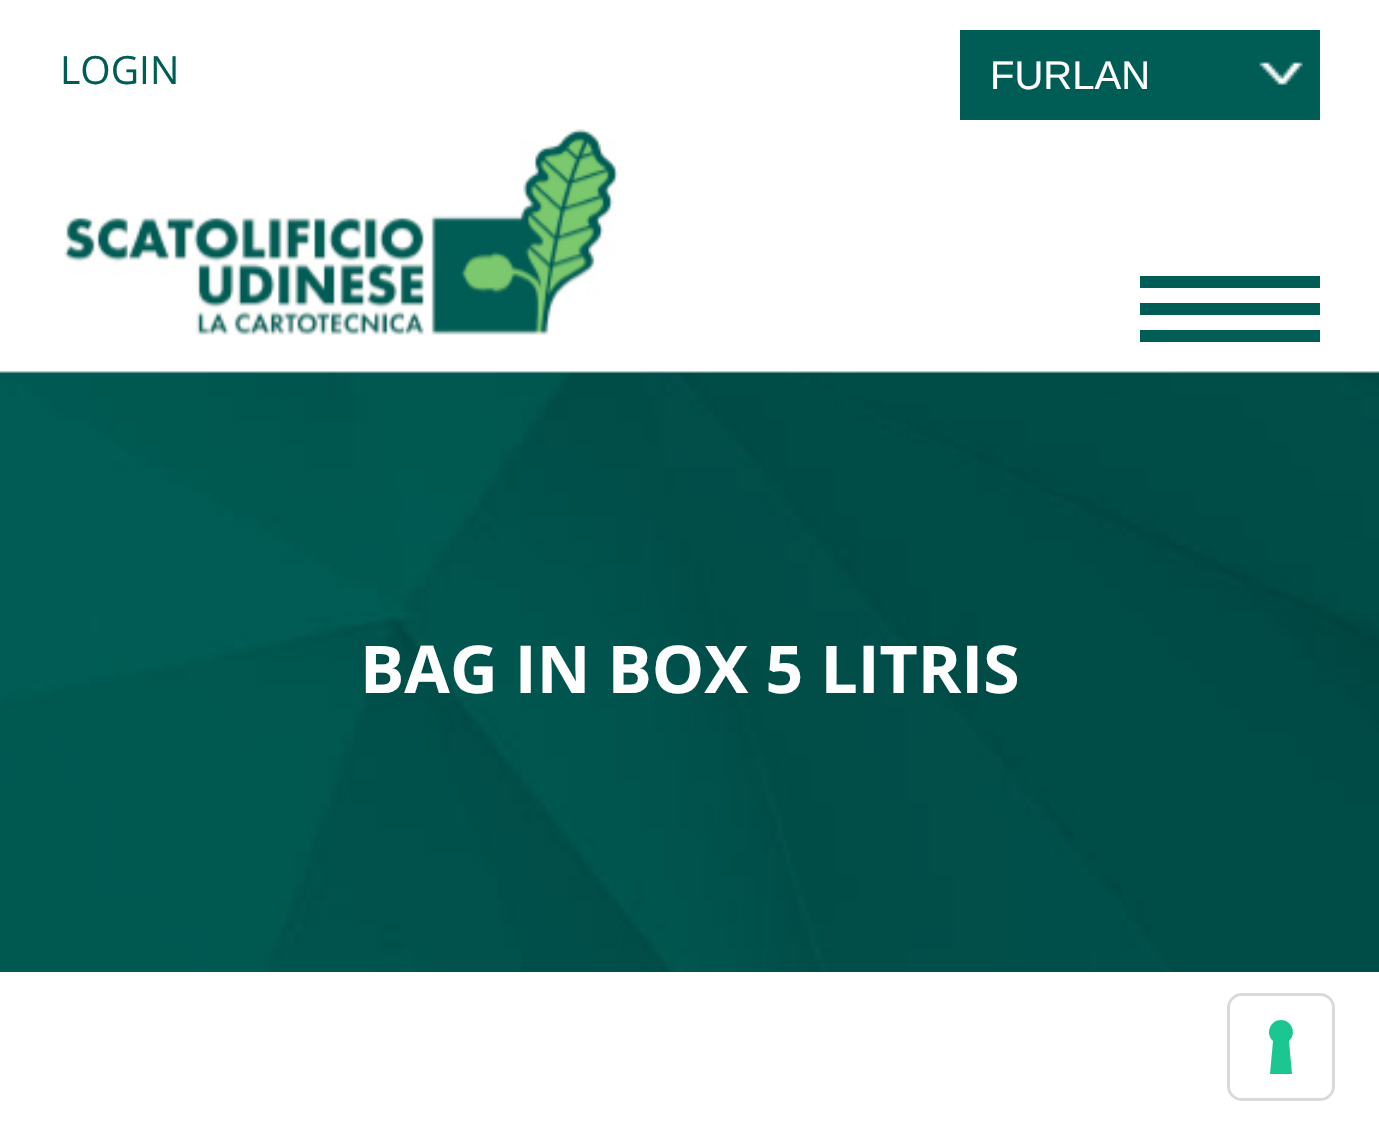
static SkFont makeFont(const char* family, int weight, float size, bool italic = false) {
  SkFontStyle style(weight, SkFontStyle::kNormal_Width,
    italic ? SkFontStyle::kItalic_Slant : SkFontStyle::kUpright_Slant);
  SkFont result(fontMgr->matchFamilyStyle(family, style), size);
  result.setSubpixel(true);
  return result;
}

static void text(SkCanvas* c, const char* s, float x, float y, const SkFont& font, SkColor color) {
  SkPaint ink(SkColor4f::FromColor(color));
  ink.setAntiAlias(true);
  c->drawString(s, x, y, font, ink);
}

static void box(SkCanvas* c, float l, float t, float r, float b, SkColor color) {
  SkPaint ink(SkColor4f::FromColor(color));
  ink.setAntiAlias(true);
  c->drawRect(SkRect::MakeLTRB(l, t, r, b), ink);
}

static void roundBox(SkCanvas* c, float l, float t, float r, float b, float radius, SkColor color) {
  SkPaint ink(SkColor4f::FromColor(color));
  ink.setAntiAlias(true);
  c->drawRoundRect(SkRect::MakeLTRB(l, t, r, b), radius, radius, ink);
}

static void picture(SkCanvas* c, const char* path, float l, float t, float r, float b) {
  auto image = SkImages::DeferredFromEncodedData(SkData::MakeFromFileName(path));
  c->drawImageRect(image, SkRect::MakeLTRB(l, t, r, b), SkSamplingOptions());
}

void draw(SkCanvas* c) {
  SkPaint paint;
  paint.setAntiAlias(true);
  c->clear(0xffffffff);
  SkFont face1 = makeFont("Open Sans", 400, 39);
  text(c, "LOGIN", 60, 84, face1, 0xff005d56);
  box(c, 960, 30, 1320, 120, 0xff005d56);
  picture(c, "img_01.png", 1259, 62, 1303, 85);
  SkFont face2 = makeFont("Liberation Sans", 400, 40);
  text(c, "FURLAN", 990, 89, face2, 0xffffffff);
  picture(c, "img_02.png", 64, 129, 618, 335);
  box(c, 1140, 276, 1320, 288, 0xff005d56);
  box(c, 1140, 303, 1320, 315, 0xff005d56);
  box(c, 1140, 330, 1320, 342, 0xff005d56);
  picture(c, "img_03.png", 0, 371, 1379, 972);
  SkFont face3 = makeFont("Open Sans", 700, 66);
  text(c, "BAG IN BOX 5 LITRIS", 360, 693, face3, 0xffffffff);
  paint.setStyle(SkPaint::kStroke_Style);
  paint.setStrokeWidth(3);
  paint.setColor(0xffd9d9d9);
  c->drawRoundRect(SkRect::MakeLTRB(1228.5f, 994.5f, 1333.5f, 1099.5f), 13.5f, 13.5f, paint);
  roundBox(c, 1230, 996, 1332, 1098, 12, 0xffffffff);
  paint.setStyle(SkPaint::kFill_Style);
  paint.setColor(0xff1cc691);
  c->drawPath(SkPathBuilder(SkPathFillType::kEvenOdd).moveTo(1281, 1020).cubicTo(1292, 1020, 1297, 1034, 1289, 1041).lineTo(1292, 1074).lineTo(1270, 1074).lineTo(1273, 1041).cubicTo(1265, 1034, 1270, 1020, 1281, 1020).close().detach(), paint);
}
